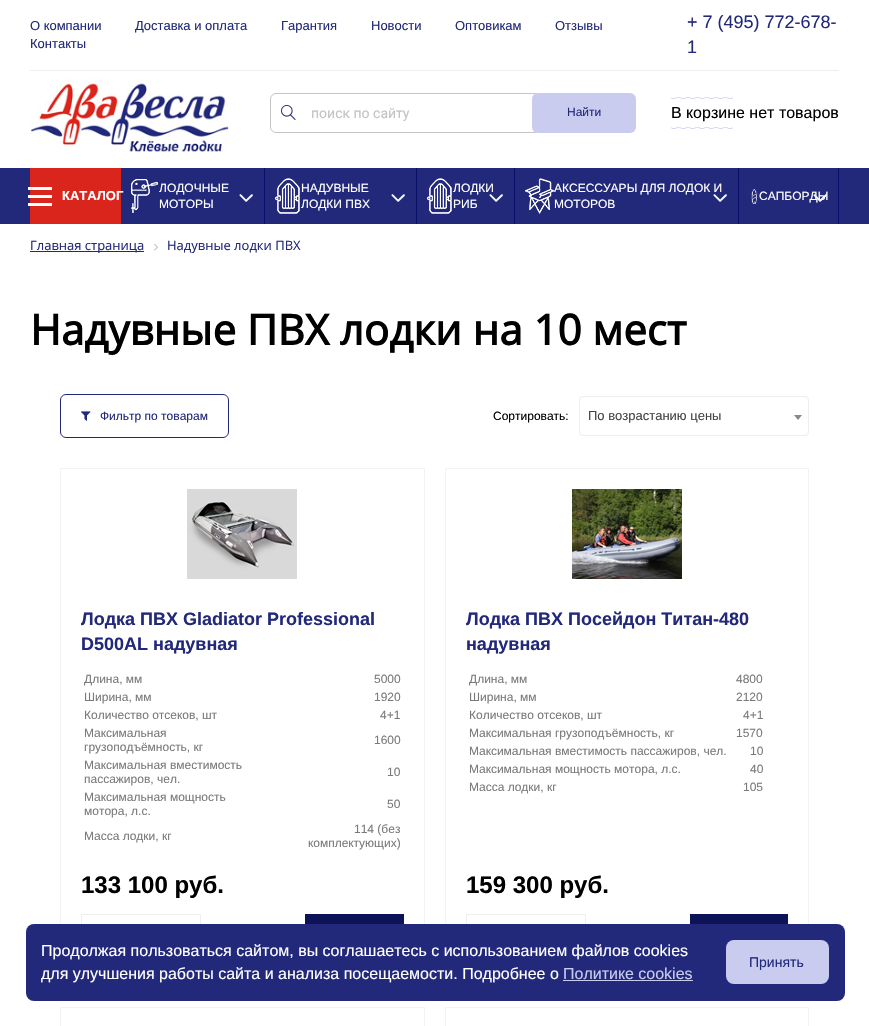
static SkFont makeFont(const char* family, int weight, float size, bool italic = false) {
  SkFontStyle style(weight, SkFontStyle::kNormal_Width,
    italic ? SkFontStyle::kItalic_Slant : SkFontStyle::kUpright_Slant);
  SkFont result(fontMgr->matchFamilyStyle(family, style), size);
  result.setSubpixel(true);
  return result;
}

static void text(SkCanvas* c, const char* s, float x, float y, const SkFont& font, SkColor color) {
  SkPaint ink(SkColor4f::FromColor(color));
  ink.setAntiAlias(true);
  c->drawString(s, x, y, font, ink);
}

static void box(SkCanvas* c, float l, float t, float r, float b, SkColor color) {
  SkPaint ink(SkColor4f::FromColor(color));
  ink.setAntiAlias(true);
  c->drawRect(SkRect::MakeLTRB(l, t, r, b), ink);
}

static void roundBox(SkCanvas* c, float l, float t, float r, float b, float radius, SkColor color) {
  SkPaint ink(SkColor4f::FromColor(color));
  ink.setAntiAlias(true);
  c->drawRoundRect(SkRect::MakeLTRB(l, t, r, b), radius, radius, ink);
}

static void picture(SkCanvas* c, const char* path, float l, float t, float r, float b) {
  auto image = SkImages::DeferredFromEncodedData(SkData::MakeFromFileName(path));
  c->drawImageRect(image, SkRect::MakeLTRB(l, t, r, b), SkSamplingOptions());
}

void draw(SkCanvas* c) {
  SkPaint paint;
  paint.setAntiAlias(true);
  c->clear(0xffffffff);
  box(c, 30, 70, 839, 71, 0xffeeeeee);
  SkFont face1 = makeFont("Liberation Sans", 400, 13);
  text(c, "О компании", 30, 30, face1, 0xff22297a);
  text(c, "Доставка и оплата", 135, 30, face1, 0xff22297a);
  text(c, "Гарантия", 281, 30, face1, 0xff22297a);
  text(c, "Новости", 371, 30, face1, 0xff22297a);
  text(c, "Оптовикам", 455, 30, face1, 0xff22297a);
  text(c, "Отзывы", 555, 30, face1, 0xff22297a);
  text(c, "Контакты", 30, 48, face1, 0xff22297a);
  SkFont face2 = makeFont("Liberation Sans", 400, 18);
  text(c, "+ 7 (495) 772-678-", 687, 28, face2, 0xff22297a);
  text(c, "1", 687, 53, face2, 0xff22297a);
  picture(c, "img_01.png", 30, 78, 230, 152);
  picture(c, "img_02.png", 281, 105, 296, 120);
  paint.setStyle(SkPaint::kStroke_Style);
  paint.setStrokeWidth(1);
  paint.setColor(0xffc4c4c4);
  c->drawRoundRect(SkRect::MakeLTRB(270.5f, 93.5f, 539.5f, 132.5f), 5.5f, 5.5f, paint);
  SkFont face3 = makeFont("Roboto", 400, 14);
  text(c, "поиск по сайту", 311, 118, face3, 0xffc4c4c4);
  roundBox(c, 532, 93, 636, 133, 6, 0xffc9ccef);
  SkFont face4 = makeFont("Liberation Sans", 400, 12);
  text(c, "Найти", 567, 116, face4, 0xff22297a);
  picture(c, "img_03.png", 671, 97, 733, 99);
  SkFont face5 = makeFont("Liberation Sans", 400, 16);
  text(c, "В корзине нет товаров", 671, 118, face5, 0xff000000);
  picture(c, "img_03.png", 671, 127, 733, 129);
  box(c, 0, 168, 869, 224, 0xff22297a);
  box(c, 30, 168, 121, 224, 0xffda251c);
  box(c, 28, 187, 52, 190, 0xffffffff);
  box(c, 28, 195, 52, 198, 0xffffffff);
  box(c, 28, 203, 52, 206, 0xffffffff);
  SkFont face6 = makeFont("Liberation Sans", 700, 13);
  text(c, "КАТАЛОГ", 62, 200, face6, 0xffffffff);
  box(c, 264, 168, 265, 224, 0xff081069);
  picture(c, "img_04.png", 131, 179, 158, 213);
  text(c, "ЛОДОЧНЫЕ", 159, 192, face4, 0xffffffff);
  picture(c, "img_05.png", 239, 194, 253, 202);
  text(c, "МОТОРЫ", 159, 208, face4, 0xffffffff);
  box(c, 416, 168, 417, 224, 0xff081069);
  picture(c, "img_06.png", 275, 178, 300, 214);
  text(c, "НАДУВНЫЕ", 301, 192, face4, 0xffffffff);
  picture(c, "img_05.png", 391, 194, 405, 202);
  text(c, "ЛОДКИ ПВХ", 301, 208, face4, 0xffffffff);
  box(c, 514, 168, 515, 224, 0xff081069);
  picture(c, "img_06.png", 427, 178, 452, 214);
  text(c, "ЛОДКИ", 453, 192, face4, 0xffffffff);
  picture(c, "img_05.png", 489, 194, 503, 202);
  text(c, "РИБ", 453, 208, face4, 0xffffffff);
  box(c, 738, 168, 739, 224, 0xff081069);
  picture(c, "img_07.png", 525, 178, 554, 214);
  text(c, "АКСЕССУАРЫ ДЛЯ ЛОДОК И", 554, 192, face4, 0xffffffff);
  picture(c, "img_05.png", 713, 194, 727, 202);
  text(c, "МОТОРОВ", 554, 208, face4, 0xffffffff);
  box(c, 838, 168, 839, 224, 0xff081069);
  picture(c, "img_08.png", 749, 189, 759, 204);
  text(c, "САПБОРДЫ", 759, 200, face4, 0xffffffff);
  picture(c, "img_09.png", 813, 194, 827, 202);
  box(c, 30, 251, 144, 252, 0xff22297a);
  SkFont face7 = makeFont("Open Sans", 400, 13);
  text(c, "Главная страница", 30, 250, face7, 0xff22297a);
  picture(c, "img_10.png", 154, 243, 158, 251);
  text(c, "Надувные лодки ПВХ", 167, 250, face7, 0xff22297a);
  SkFont face8 = makeFont("Open Sans", 700, 42);
  text(c, "Надувные ПВХ лодки на 10 мест", 30, 345, face8, 0xff000000);
  paint.setColor(0xff22297a);
  c->drawRoundRect(SkRect::MakeLTRB(60.5f, 394.5f, 228.5f, 437.5f), 5.5f, 5.5f, paint);
  picture(c, "img_11.png", 81, 411, 91, 421);
  text(c, "Фильтр по товарам", 100, 420, face4, 0xff22297a);
  text(c, "Сортировать:", 493, 420, face4, 0xff000000);
  paint.setColor(0xffeeeeee);
  c->drawRoundRect(SkRect::MakeLTRB(579.5f, 396.5f, 808.5f, 435.5f), 3.5f, 3.5f, paint);
  text(c, "По возрастанию цены", 588, 420, face1, 0xff444444);
  paint.setStyle(SkPaint::kFill_Style);
  paint.setColor(0xff888888);
  c->drawPath(SkPathBuilder().moveTo(794, 415).lineTo(802, 415).lineTo(798, 420).close().detach(), paint);
  paint.setStyle(SkPaint::kStroke_Style);
  paint.setColor(0xfff3f3f3);
  c->drawRect(SkRect::MakeLTRB(60.5f, 468.5f, 424.5f, 986.5f), paint);
  picture(c, "img_12.png", 187, 489, 297, 579);
  SkFont face9 = makeFont("Liberation Sans", 700, 18);
  text(c, "Лодка ПВХ Gladiator Professional", 81, 625, face9, 0xff22297a);
  text(c, "D500AL надувная", 81, 650, face9, 0xff22297a);
  text(c, "Длина, мм", 84, 683, face4, 0xff7a7a7a);
  text(c, "5000", 374, 683, face4, 0xff7a7a7a);
  text(c, "Ширина, мм", 84, 701, face4, 0xff7a7a7a);
  text(c, "1920", 374, 701, face4, 0xff7a7a7a);
  text(c, "Количество отсеков, шт", 84, 719, face4, 0xff7a7a7a);
  text(c, "4+1", 380, 719, face4, 0xff7a7a7a);
  text(c, "Максимальная", 84, 737, face4, 0xff7a7a7a);
  text(c, "грузоподъёмность, кг", 84, 751, face4, 0xff7a7a7a);
  text(c, "1600", 374, 744, face4, 0xff7a7a7a);
  text(c, "Максимальная вместимость", 84, 769, face4, 0xff7a7a7a);
  text(c, "пассажиров, чел.", 84, 783, face4, 0xff7a7a7a);
  text(c, "10", 387, 776, face4, 0xff7a7a7a);
  text(c, "Максимальная мощность", 84, 801, face4, 0xff7a7a7a);
  text(c, "мотора, л.с.", 84, 815, face4, 0xff7a7a7a);
  text(c, "50", 387, 808, face4, 0xff7a7a7a);
  text(c, "Масса лодки, кг", 84, 840, face4, 0xff7a7a7a);
  text(c, "114 (без", 354, 833, face4, 0xff7a7a7a);
  text(c, "комплектующих)", 308, 847, face4, 0xff7a7a7a);
  SkFont face10 = makeFont("Liberation Sans", 700, 24);
  text(c, "133 100 руб.", 81, 893, face10, 0xff000000);
  paint.setColor(0xffefefef);
  c->drawRect(SkRect::MakeLTRB(81.5f, 914.5f, 200.5f, 957.5f), paint);
  box(c, 305, 914, 404, 924, 0xff0d1357);
  paint.setColor(0xfff3f3f3);
  c->drawRect(SkRect::MakeLTRB(445.5f, 468.5f, 808.5f, 986.5f), paint);
  picture(c, "img_13.png", 572, 489, 682, 579);
  text(c, "Лодка ПВХ Посейдон Титан-480", 466, 625, face9, 0xff22297a);
  text(c, "надувная", 466, 650, face9, 0xff22297a);
  text(c, "Длина, мм", 469, 683, face4, 0xff7a7a7a);
  text(c, "4800", 736, 683, face4, 0xff7a7a7a);
  text(c, "Ширина, мм", 469, 701, face4, 0xff7a7a7a);
  text(c, "2120", 736, 701, face4, 0xff7a7a7a);
  text(c, "Количество отсеков, шт", 469, 719, face4, 0xff7a7a7a);
  text(c, "4+1", 743, 719, face4, 0xff7a7a7a);
  text(c, "Максимальная грузоподъёмность, кг", 469, 737, face4, 0xff7a7a7a);
  text(c, "1570", 736, 737, face4, 0xff7a7a7a);
  text(c, "Максимальная вместимость пассажиров, чел.", 469, 755, face4, 0xff7a7a7a);
  text(c, "10", 750, 755, face4, 0xff7a7a7a);
  text(c, "Максимальная мощность мотора, л.с.", 469, 773, face4, 0xff7a7a7a);
  text(c, "40", 750, 773, face4, 0xff7a7a7a);
  text(c, "Масса лодки, кг", 469, 791, face4, 0xff7a7a7a);
  text(c, "105", 743, 791, face4, 0xff7a7a7a);
  text(c, "159 300 руб.", 466, 893, face10, 0xff000000);
  paint.setColor(0xffefefef);
  c->drawRect(SkRect::MakeLTRB(466.5f, 914.5f, 585.5f, 957.5f), paint);
  box(c, 690, 914, 788, 924, 0xff0d1357);
  paint.setColor(0xfff3f3f3);
  c->drawRect(SkRect::MakeLTRB(60.5f, 1007.5f, 424.5f, 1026.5f), paint);
  c->drawRect(SkRect::MakeLTRB(445.5f, 1007.5f, 808.5f, 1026.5f), paint);
  roundBox(c, 26, 924, 845, 1001, 8, 0xff22297b);
  text(c, "Продолжая пользоваться сайтом, вы соглашаетесь с использованием файлов cookies", 41, 956, face5, 0xffffffff);
  text(c, "для улучшения работы сайта и анализа посещаемости. Подробнее о", 41, 979, face5, 0xffffffff);
  text(c, "Политике cookies", 563, 979, face5, 0xffc9ccef);
  box(c, 563, 980, 693, 981, 0xffc9ccef);
  roundBox(c, 726, 940, 829, 984, 8, 0xffc9ccef);
  SkFont face11 = makeFont("Liberation Sans", 400, 14);
  text(c, "Принять", 749, 967, face11, 0xff22297a);
}
